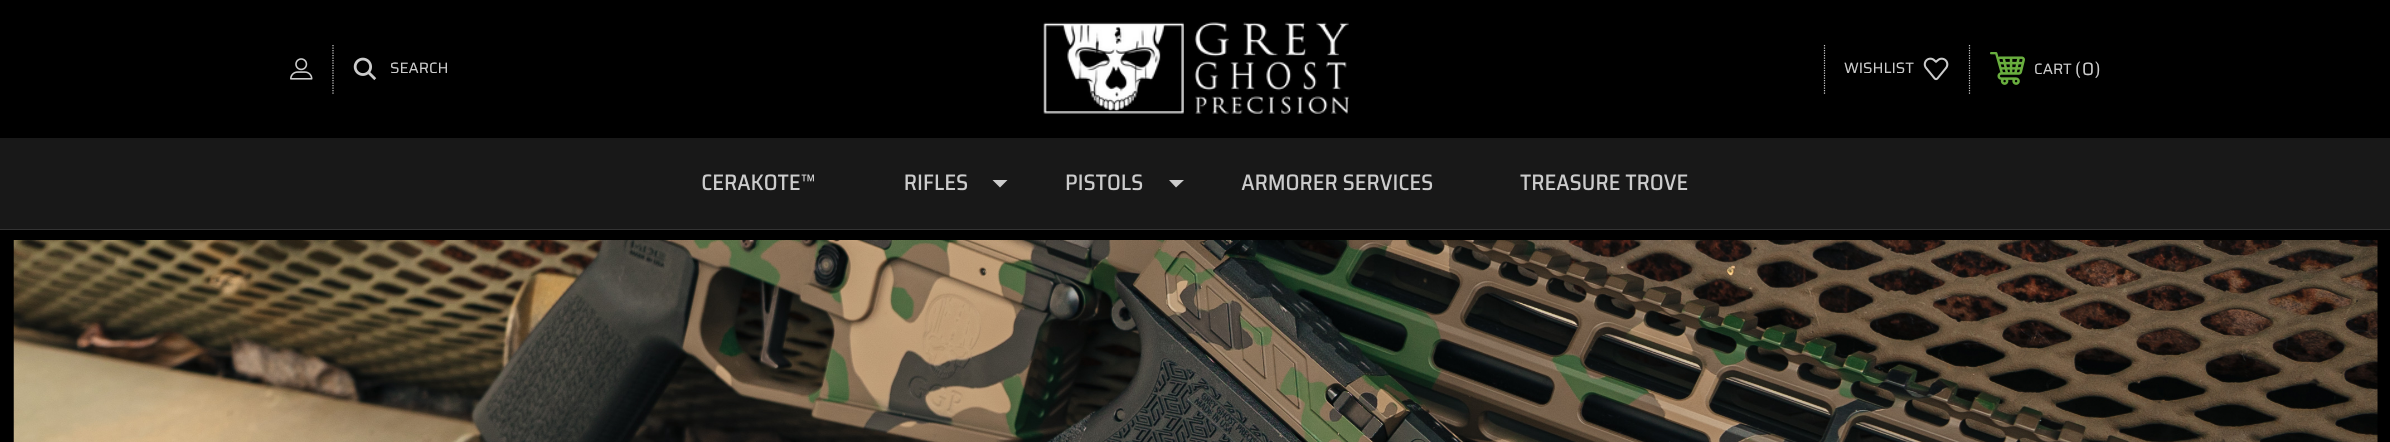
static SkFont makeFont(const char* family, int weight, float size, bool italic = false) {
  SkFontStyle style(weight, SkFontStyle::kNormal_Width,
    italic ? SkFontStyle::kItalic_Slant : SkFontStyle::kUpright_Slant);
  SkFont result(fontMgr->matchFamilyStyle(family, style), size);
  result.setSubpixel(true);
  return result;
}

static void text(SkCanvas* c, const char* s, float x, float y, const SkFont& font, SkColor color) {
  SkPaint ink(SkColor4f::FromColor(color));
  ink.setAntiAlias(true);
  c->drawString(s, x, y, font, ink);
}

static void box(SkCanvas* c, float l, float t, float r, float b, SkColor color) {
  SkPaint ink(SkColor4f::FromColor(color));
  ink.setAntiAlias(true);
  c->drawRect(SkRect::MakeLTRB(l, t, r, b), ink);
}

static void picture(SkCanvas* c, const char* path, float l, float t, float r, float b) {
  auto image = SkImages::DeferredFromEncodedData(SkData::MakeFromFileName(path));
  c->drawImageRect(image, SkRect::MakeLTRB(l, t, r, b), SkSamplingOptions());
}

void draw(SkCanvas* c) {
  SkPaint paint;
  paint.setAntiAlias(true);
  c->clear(0xff000000);
  box(c, 0, 229, 2390, 230, 0xff333333);
  picture(c, "img_01.png", 290, 58, 313, 80);
  paint.setStyle(SkPaint::kStroke_Style);
  paint.setStrokeWidth(1.2f);
  paint.setColor(0xffcccccc);
  paint.setPathEffect(SkDashPathEffect::Make({{1.25f, 1.25f}}, 0));
  c->drawPath(SkPathBuilder().moveTo(333, 45).lineTo(333, 94).detach(), paint);
  paint.setPathEffect(nullptr);
  picture(c, "img_02.png", 353, 57, 377, 81);
  SkFont face1 = makeFont("Saira", 400, 15);
  text(c, "SEARCH", 390, 73, face1, 0xffcccccc);
  picture(c, "img_03.png", 1043, 22, 1349, 114);
  paint.setPathEffect(SkDashPathEffect::Make({{1.25f, 1.25f}}, 0));
  c->drawPath(SkPathBuilder().moveTo(1969.5f, 45).lineTo(1969.5f, 94).detach(), paint);
  paint.setPathEffect(nullptr);
  paint.setPathEffect(SkDashPathEffect::Make({{1.25f, 1.25f}}, 0));
  c->drawPath(SkPathBuilder().moveTo(1824.5f, 45).lineTo(1824.5f, 94).detach(), paint);
  paint.setPathEffect(nullptr);
  text(c, "WISHLIST", 1844, 73, face1, 0xffcccccc);
  picture(c, "img_04.png", 1923, 57, 1949, 81);
  picture(c, "img_05.png", 1990, 52, 2025, 85);
  text(c, "CART", 2034, 74, face1, 0xffcccccc);
  SkFont face2 = makeFont("Saira", 400, 18);
  text(c, "(", 2075, 75, face2, 0xffcccccc);
  text(c, "0", 2082, 75, face2, 0xffcccccc);
  text(c, ")", 2095, 75, face2, 0xffcccccc);
  box(c, 0, 138, 2390, 229, 0xff181818);
  picture(c, "img_06.png", 702, 174, 814, 191);
  picture(c, "img_07.png", 905, 174, 968, 191);
  paint.setStyle(SkPaint::kFill_Style);
  c->drawPath(SkPathBuilder().moveTo(992.5f, 180).lineTo(1000, 187.5f).lineTo(1007.5f, 180).close().detach(), paint);
  picture(c, "img_08.png", 1066, 174, 1143, 191);
  c->drawPath(SkPathBuilder().moveTo(1169, 180).lineTo(1176, 187.5f).lineTo(1184, 180).close().detach(), paint);
  picture(c, "img_09.png", 1241, 174, 1433, 191);
  picture(c, "img_10.png", 1520, 174, 1688, 191);
  picture(c, "img_11.png", 13, 240, 2378, 442);
}
